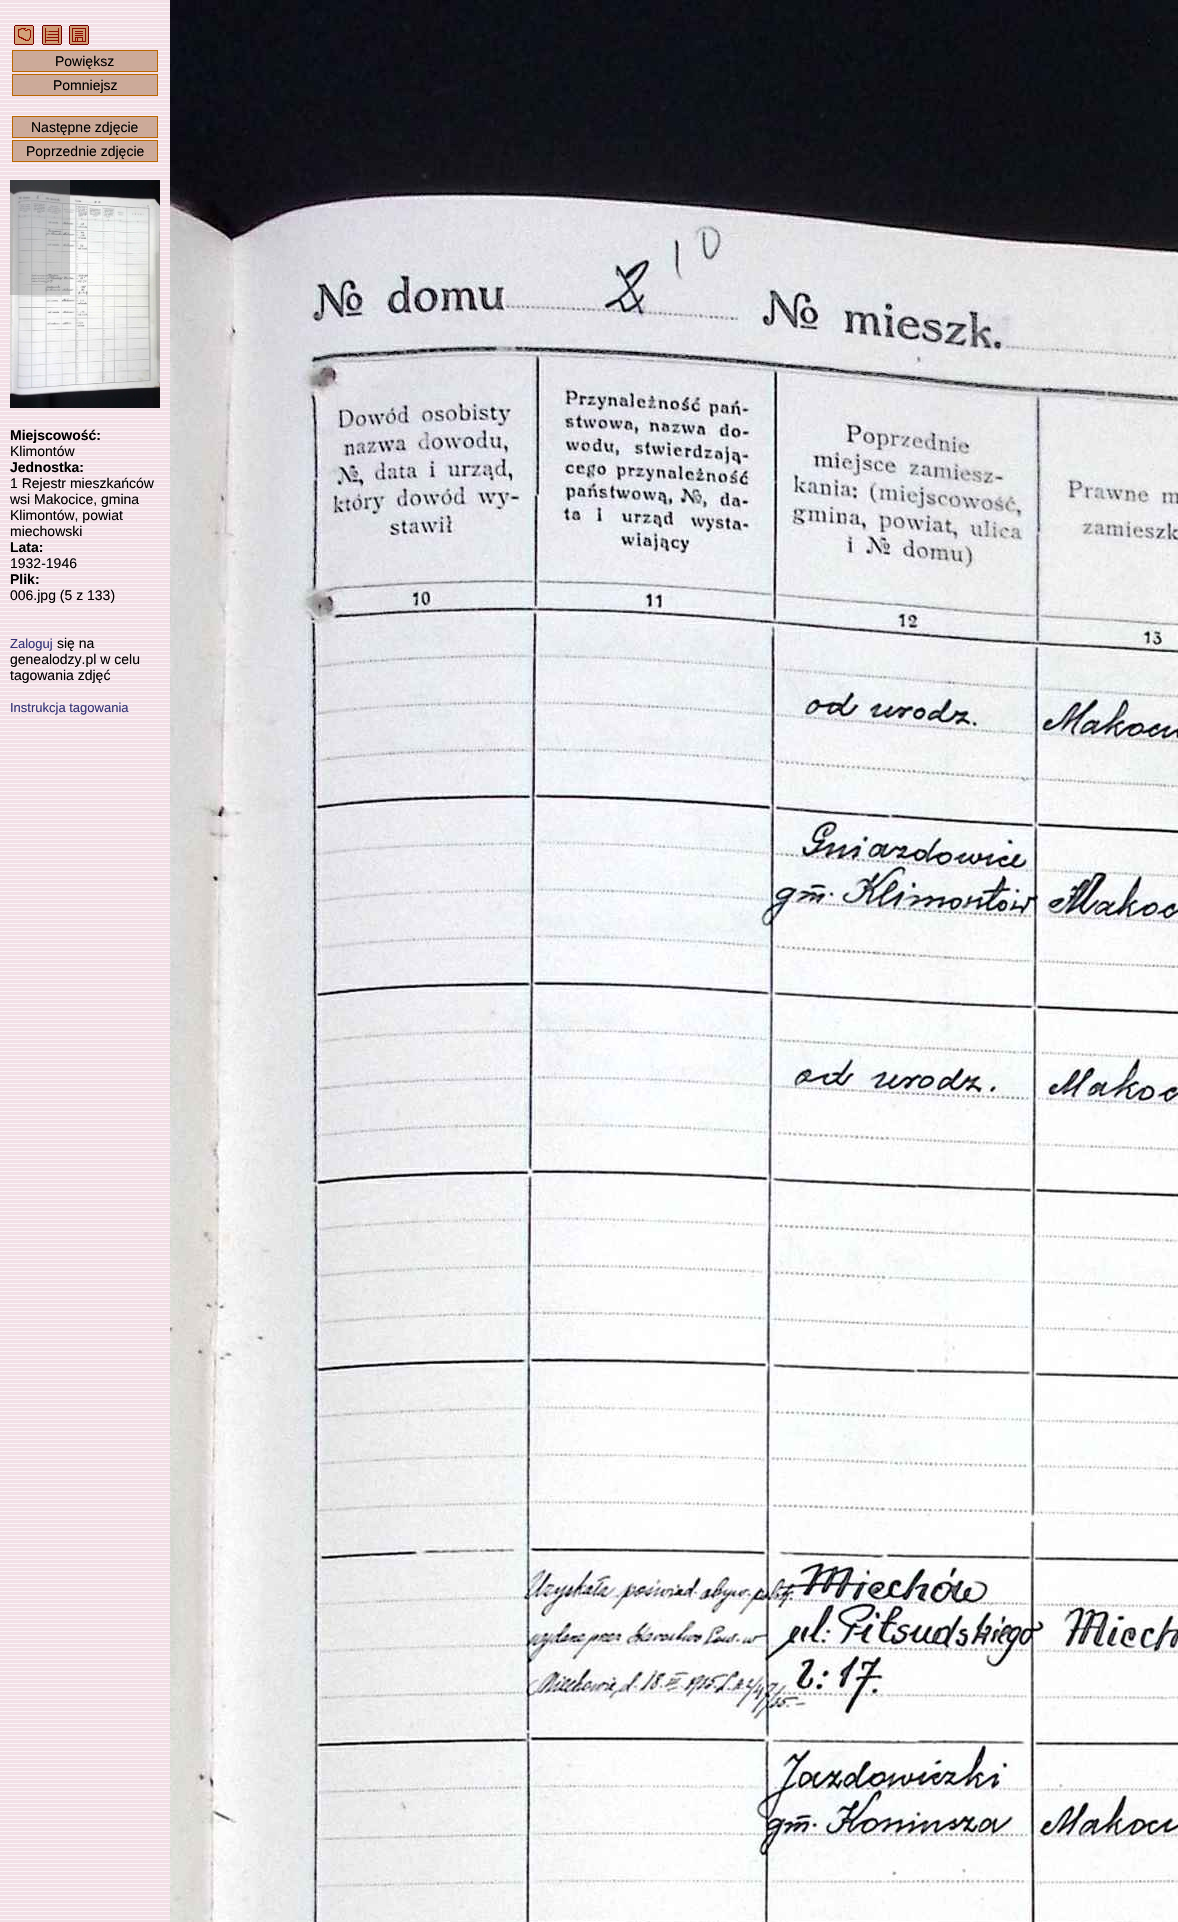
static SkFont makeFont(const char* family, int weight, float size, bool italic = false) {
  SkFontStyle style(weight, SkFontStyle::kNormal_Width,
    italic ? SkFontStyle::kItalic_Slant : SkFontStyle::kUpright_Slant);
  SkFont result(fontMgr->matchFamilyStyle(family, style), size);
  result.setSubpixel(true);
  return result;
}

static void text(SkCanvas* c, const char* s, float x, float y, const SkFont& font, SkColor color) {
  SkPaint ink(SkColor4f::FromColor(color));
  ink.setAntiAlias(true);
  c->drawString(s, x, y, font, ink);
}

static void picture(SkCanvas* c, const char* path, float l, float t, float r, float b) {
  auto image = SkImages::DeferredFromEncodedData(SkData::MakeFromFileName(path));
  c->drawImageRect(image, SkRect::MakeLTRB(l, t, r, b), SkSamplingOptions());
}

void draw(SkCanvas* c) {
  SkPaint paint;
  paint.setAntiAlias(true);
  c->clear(0xffffffff);
  picture(c, "img_01.png", 0, 0, 170, 1922);
  picture(c, "img_02.png", 14, 25, 34, 45);
  picture(c, "img_03.png", 42, 25, 62, 45);
  picture(c, "img_04.png", 69, 25, 89, 45);
  paint.setColor(0xffccaa99);
  c->drawRect(SkRect::MakeLTRB(12.5f, 50.5f, 157.5f, 71.5f), paint);
  paint.setStyle(SkPaint::kStroke_Style);
  paint.setStrokeWidth(1);
  paint.setColor(0xffbb6600);
  c->drawRect(SkRect::MakeLTRB(12.5f, 50.5f, 157.5f, 71.5f), paint);
  SkFont face1 = makeFont("Liberation Sans", 400, 14);
  text(c, "Powiększ", 55, 66, face1, 0xff000000);
  paint.setStyle(SkPaint::kFill_Style);
  paint.setColor(0xffccaa99);
  c->drawRect(SkRect::MakeLTRB(12.5f, 74.5f, 157.5f, 95.5f), paint);
  paint.setStyle(SkPaint::kStroke_Style);
  paint.setColor(0xffbb6600);
  c->drawRect(SkRect::MakeLTRB(12.5f, 74.5f, 157.5f, 95.5f), paint);
  text(c, "Pomniejsz", 53, 90, face1, 0xff000000);
  paint.setStyle(SkPaint::kFill_Style);
  paint.setColor(0xffccaa99);
  c->drawRect(SkRect::MakeLTRB(12.5f, 116.5f, 157.5f, 137.5f), paint);
  paint.setStyle(SkPaint::kStroke_Style);
  paint.setColor(0xffbb6600);
  c->drawRect(SkRect::MakeLTRB(12.5f, 116.5f, 157.5f, 137.5f), paint);
  text(c, "Następne zdjęcie", 31, 132, face1, 0xff000000);
  paint.setStyle(SkPaint::kFill_Style);
  paint.setColor(0xffccaa99);
  c->drawRect(SkRect::MakeLTRB(12.5f, 140.5f, 157.5f, 161.5f), paint);
  paint.setStyle(SkPaint::kStroke_Style);
  paint.setColor(0xffbb6600);
  c->drawRect(SkRect::MakeLTRB(12.5f, 140.5f, 157.5f, 161.5f), paint);
  text(c, "Poprzednie zdjęcie", 26, 156, face1, 0xff000000);
  picture(c, "img_05.png", 10, 180, 160, 408);
  SkFont face2 = makeFont("Liberation Sans", 700, 14);
  text(c, "Miejscowość:", 10, 440, face2, 0xff000000);
  text(c, "Klimontów", 10, 456, face1, 0xff000000);
  text(c, "Jednostka:", 10, 472, face2, 0xff000000);
  text(c, "1 Rejestr mieszkańców", 10, 488, face1, 0xff000000);
  text(c, "wsi Makocice, gmina", 10, 504, face1, 0xff000000);
  text(c, "Klimontów, powiat", 10, 520, face1, 0xff000000);
  text(c, "miechowski", 10, 536, face1, 0xff000000);
  text(c, "Lata:", 10, 552, face2, 0xff000000);
  text(c, "1932-1946", 10, 568, face1, 0xff000000);
  text(c, "Plik:", 10, 584, face2, 0xff000000);
  text(c, "006.jpg (5 z 133)", 10, 600, face1, 0xff000000);
  SkFont face3 = makeFont("Liberation Sans", 400, 13);
  text(c, "Zaloguj", 10, 648, face3, 0xff333377);
  text(c, "się na", 57, 648, face1, 0xff000000);
  text(c, "genealodzy.pl w celu", 10, 664, face1, 0xff000000);
  text(c, "tagowania zdjęć", 10, 680, face1, 0xff000000);
  text(c, "Instrukcja tagowania", 10, 712, face3, 0xff333377);
  picture(c, "img_06.png", 170, 0, 1178, 1922);
}
